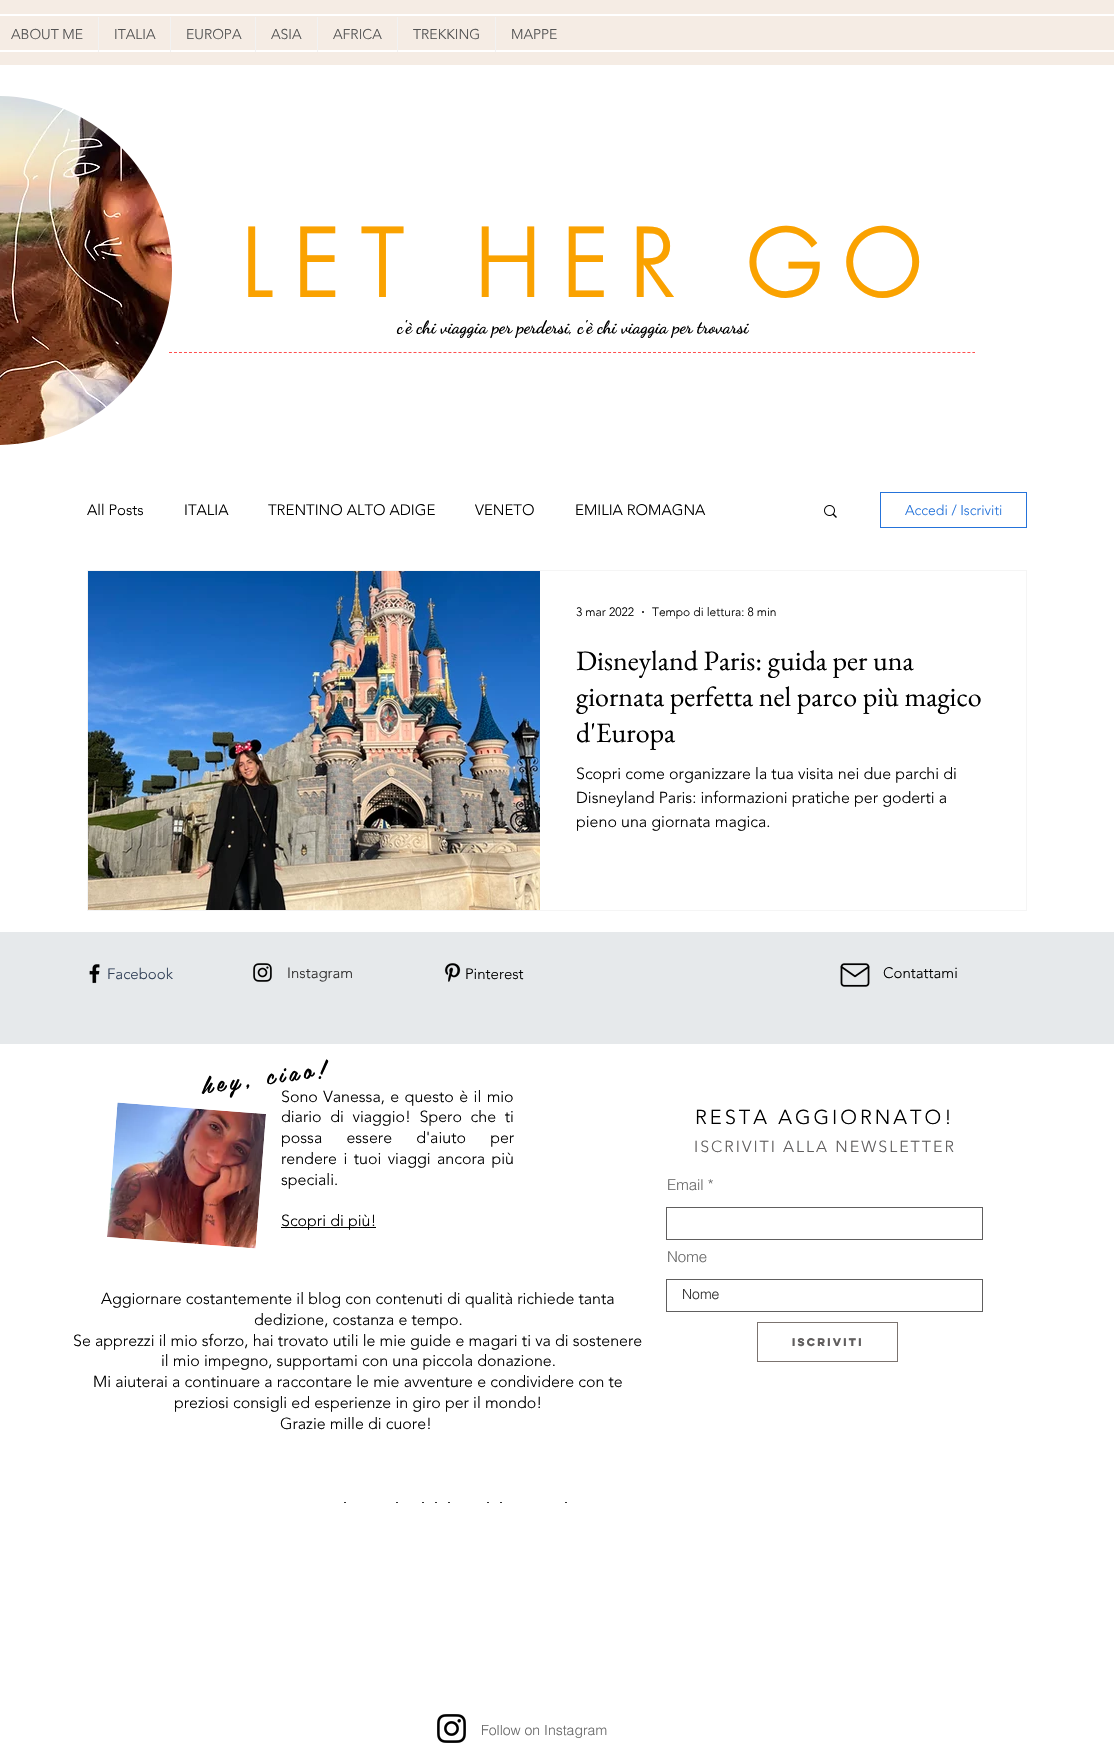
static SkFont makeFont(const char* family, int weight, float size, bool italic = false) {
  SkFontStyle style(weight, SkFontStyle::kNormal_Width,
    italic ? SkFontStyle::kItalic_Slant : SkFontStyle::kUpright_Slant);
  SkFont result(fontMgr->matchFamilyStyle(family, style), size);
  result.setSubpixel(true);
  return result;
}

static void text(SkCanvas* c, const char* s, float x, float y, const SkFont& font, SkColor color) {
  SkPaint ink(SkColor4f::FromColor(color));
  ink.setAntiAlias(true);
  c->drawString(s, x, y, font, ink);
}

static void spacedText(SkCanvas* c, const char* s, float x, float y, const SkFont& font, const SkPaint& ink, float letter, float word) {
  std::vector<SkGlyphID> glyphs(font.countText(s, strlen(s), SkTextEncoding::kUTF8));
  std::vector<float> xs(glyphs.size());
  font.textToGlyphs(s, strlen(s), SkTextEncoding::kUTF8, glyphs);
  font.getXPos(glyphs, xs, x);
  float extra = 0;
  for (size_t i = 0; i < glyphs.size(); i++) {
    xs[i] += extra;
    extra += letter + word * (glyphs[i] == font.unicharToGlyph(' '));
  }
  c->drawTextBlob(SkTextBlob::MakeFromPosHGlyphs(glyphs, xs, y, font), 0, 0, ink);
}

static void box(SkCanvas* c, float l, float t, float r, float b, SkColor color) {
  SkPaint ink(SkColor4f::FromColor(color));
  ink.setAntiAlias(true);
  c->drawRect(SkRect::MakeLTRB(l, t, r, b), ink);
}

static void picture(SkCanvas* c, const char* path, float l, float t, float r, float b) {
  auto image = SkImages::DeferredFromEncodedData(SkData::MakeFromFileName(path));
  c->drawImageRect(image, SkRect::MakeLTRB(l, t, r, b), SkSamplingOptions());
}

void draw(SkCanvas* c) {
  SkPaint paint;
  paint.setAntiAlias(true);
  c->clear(0xffffffff);
  box(c, 0, 0, 1114, 65, 0xfff5ece4);
  box(c, 0, 14, 1114, 16, 0xffffffff);
  box(c, 0, 50, 1114, 52, 0xffffffff);
  SkFont face1 = makeFont("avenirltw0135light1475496", 300, 14);
  text(c, "ABOUT ME", 11, 39, face1, 0xff545454);
  box(c, 98, 17, 99, 52, 0xfff2f2f2);
  text(c, "ITALIA", 114, 39, face1, 0xff545454);
  box(c, 170, 17, 171, 52, 0xfff2f2f2);
  text(c, "EUROPA", 186, 39, face1, 0xff545454);
  box(c, 255, 17, 256, 52, 0xfff2f2f2);
  text(c, "ASIA", 271, 39, face1, 0xff545454);
  box(c, 317, 17, 318, 52, 0xfff2f2f2);
  text(c, "AFRICA", 333, 39, face1, 0xff545454);
  box(c, 397, 17, 398, 52, 0xfff2f2f2);
  text(c, "TREKKING", 413, 39, face1, 0xff545454);
  box(c, 495, 17, 496, 52, 0xfff2f2f2);
  text(c, "MAPPE", 511, 39, face1, 0xff545454);
  picture(c, "img_01.png", 0, 96, 172, 445);
  SkFont face2 = makeFont("futura", 700, 90);
  paint.setColor(0xfffaa200);
  spacedText(c, "LET HER GO", 241, 297, face2, paint, 22.5f, 0);
  SkFont face3 = makeFont("Dancing Script", 700, 18);
  text(c, "c'è chi viaggia per perdersi, c'è chi viaggia per trovarsi", 397, 333, face3, 0xff000000);
  paint.setStyle(SkPaint::kStroke_Style);
  paint.setStrokeWidth(1);
  paint.setColor(0xffff4f4f);
  paint.setPathEffect(SkDashPathEffect::Make({{3, 1.99f}}, 0));
  c->drawPath(SkPathBuilder().moveTo(169, 352.5f).lineTo(975, 352.5f).detach(), paint);
  paint.setPathEffect(nullptr);
  SkFont face4 = makeFont("avenirltw0135light1475496", 300, 15);
  text(c, "All Posts", 87, 515, face4, 0xff000000);
  text(c, "ITALIA", 184, 515, face4, 0xff000000);
  text(c, "TRENTINO ALTO ADIGE", 268, 515, face4, 0xff000000);
  text(c, "VENETO", 475, 515, face4, 0xff000000);
  text(c, "EMILIA ROMAGNA", 575, 515, face4, 0xff000000);
  picture(c, "img_02.png", 824, 505, 837, 518);
  paint.setColor(0xff2573da);
  c->drawRect(SkRect::MakeLTRB(880.5f, 492.5f, 1026.5f, 527.5f), paint);
  text(c, "Accedi / Iscriviti", 905, 515, face1, 0xff2573da);
  paint.setColor(0xfff5f5f5);
  c->drawRect(SkRect::MakeLTRB(87.5f, 570.5f, 1026.5f, 910.5f), paint);
  picture(c, "img_03.png", 88, 571, 540, 910);
  SkFont face5 = makeFont("avenirltw0135light1475496", 300, 12);
  text(c, "3 mar 2022", 576, 616, face5, 0xff000000);
  paint.setStyle(SkPaint::kFill_Style);
  paint.setColor(0xff000000);
  c->drawCircle(643, 612, 1, paint);
  text(c, "Tempo di lettura: 8 min", 652, 616, face5, 0xff000000);
  SkFont face6 = makeFont("EB Garamond", 400, 28);
  text(c, "Disneyland Paris: guida per una", 576, 670, face6, 0xff000000);
  text(c, "giornata perfetta nel parco più magico", 576, 706, face6, 0xff000000);
  text(c, "d'Europa", 576, 742, face6, 0xff000000);
  SkFont face7 = makeFont("avenirltw0135light1475496", 300, 16);
  text(c, "Scopri come organizzare la tua visita nei due parchi di", 576, 779, face7, 0xff000000);
  text(c, "Disneyland Paris: informazioni pratiche per goderti a", 576, 803, face7, 0xff000000);
  text(c, "pieno una giornata magica.", 576, 827, face7, 0xff000000);
  box(c, 0, 932, 1114, 1044, 0xffe6e9eb);
  picture(c, "img_04.png", 89, 964, 100, 984);
  text(c, "Facebook", 107, 979, face4, 0xff324158);
  picture(c, "img_05.png", 253, 963, 272, 982);
  text(c, "Instagram", 287, 978, face4, 0xff2f2e2e);
  picture(c, "img_06.png", 444, 963, 461, 982);
  text(c, "Pinterest", 465, 979, face4, 0xff000000);
  picture(c, "img_07.png", 840, 963, 870, 987);
  text(c, "Contattami", 883, 978, face4, 0xff000000);
  SkFont face8 = makeFont("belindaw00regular", 400, 23);
  c->save();
  c->rotate(-8.3f, 203, 1094);
  spacedText(c, "hey, ciao!", 203, 1094, face8, paint, 4.5f, 0);
  c->restore();
  picture(c, "img_08.png", 107, 1102, 266, 1249);
  spacedText(c, "Sono Vanessa, e questo è il mio", 281, 1102, face7, paint, 0, 1.25f);
  spacedText(c, "diario di viaggio! Spero che ti", 281, 1122, face7, paint, 0, 4.5f);
  spacedText(c, "possa essere d'aiuto per", 281, 1143, face7, paint, 0, 20);
  spacedText(c, "rendere i tuoi viaggi ancora più", 281, 1164, face7, paint, 0, 2.25f);
  text(c, "speciali.", 281, 1185, face7, 0xff000000);
  box(c, 281, 1227, 376, 1228, 0xff000000);
  text(c, "Scopri di più!", 281, 1226, face7, 0xff000000);
  SkFont face9 = makeFont("avenirltw0135light1475496", 300, 20);
  spacedText(c, "RESTA AGGIORNATO!", 695, 1124, face9, paint, 3, 0);
  paint.setColor(0xff605e5e);
  spacedText(c, "ISCRIVITI ALLA NEWSLETTER", 694, 1152, face7, paint, 2, 0);
  SkFont face10 = makeFont("helvetica", 300, 15);
  text(c, "Email *", 667, 1190, face10, 0xff696969);
  paint.setStyle(SkPaint::kStroke_Style);
  c->drawRect(SkRect::MakeLTRB(666.5f, 1207.5f, 982.5f, 1239.5f), paint);
  text(c, "Nome", 667, 1262, face10, 0xff696969);
  c->drawRect(SkRect::MakeLTRB(666.5f, 1279.5f, 982.5f, 1311.5f), paint);
  SkFont face11 = makeFont("helvetica", 300, 14);
  text(c, "Nome", 682, 1299, face11, 0xff2f2e2e);
  paint.setColor(0xff7b736f);
  c->drawRect(SkRect::MakeLTRB(757.5f, 1322.5f, 897.5f, 1361.5f), paint);
  SkFont face12 = makeFont("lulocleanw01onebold", 700, 10);
  text(c, "Iscriviti", 792, 1346, face12, 0xff605e5e);
  text(c, "Aggiornare costantemente il blog con contenuti di qualità richiede tanta", 101, 1304, face7, 0xff000000);
  text(c, "dedizione, costanza e tempo.", 254, 1325, face7, 0xff000000);
  text(c, "Se apprezzi il mio sforzo, hai trovato utili le mie guide e magari ti va di sostenere", 73, 1346, face7, 0xff000000);
  text(c, "il mio impegno, supportami con una piccola donazione.", 161, 1366, face7, 0xff000000);
  text(c, "Mi aiuterai a continuare a raccontare le mie avventure e condividere con te", 93, 1387, face7, 0xff000000);
  text(c, "preziosi consigli ed esperienze in giro per il mondo!", 174, 1408, face7, 0xff000000);
  text(c, "Grazie mille di cuore!", 280, 1429, face7, 0xff000000);
  box(c, 344, 1502, 346, 1503, 0xff333333);
  box(c, 396, 1502, 398, 1503, 0xff333333);
  box(c, 422, 1502, 424, 1503, 0xff333333);
  box(c, 435, 1502, 437, 1503, 0xff333333);
  box(c, 448, 1502, 450, 1503, 0xff333333);
  box(c, 487, 1502, 489, 1503, 0xff333333);
  box(c, 500, 1502, 502, 1503, 0xff333333);
  box(c, 565, 1502, 567, 1503, 0xff333333);
  picture(c, "img_09.png", 437, 1714, 466, 1743);
  text(c, "Follow on Instagram", 481, 1735, face11, 0xff696969);
}
